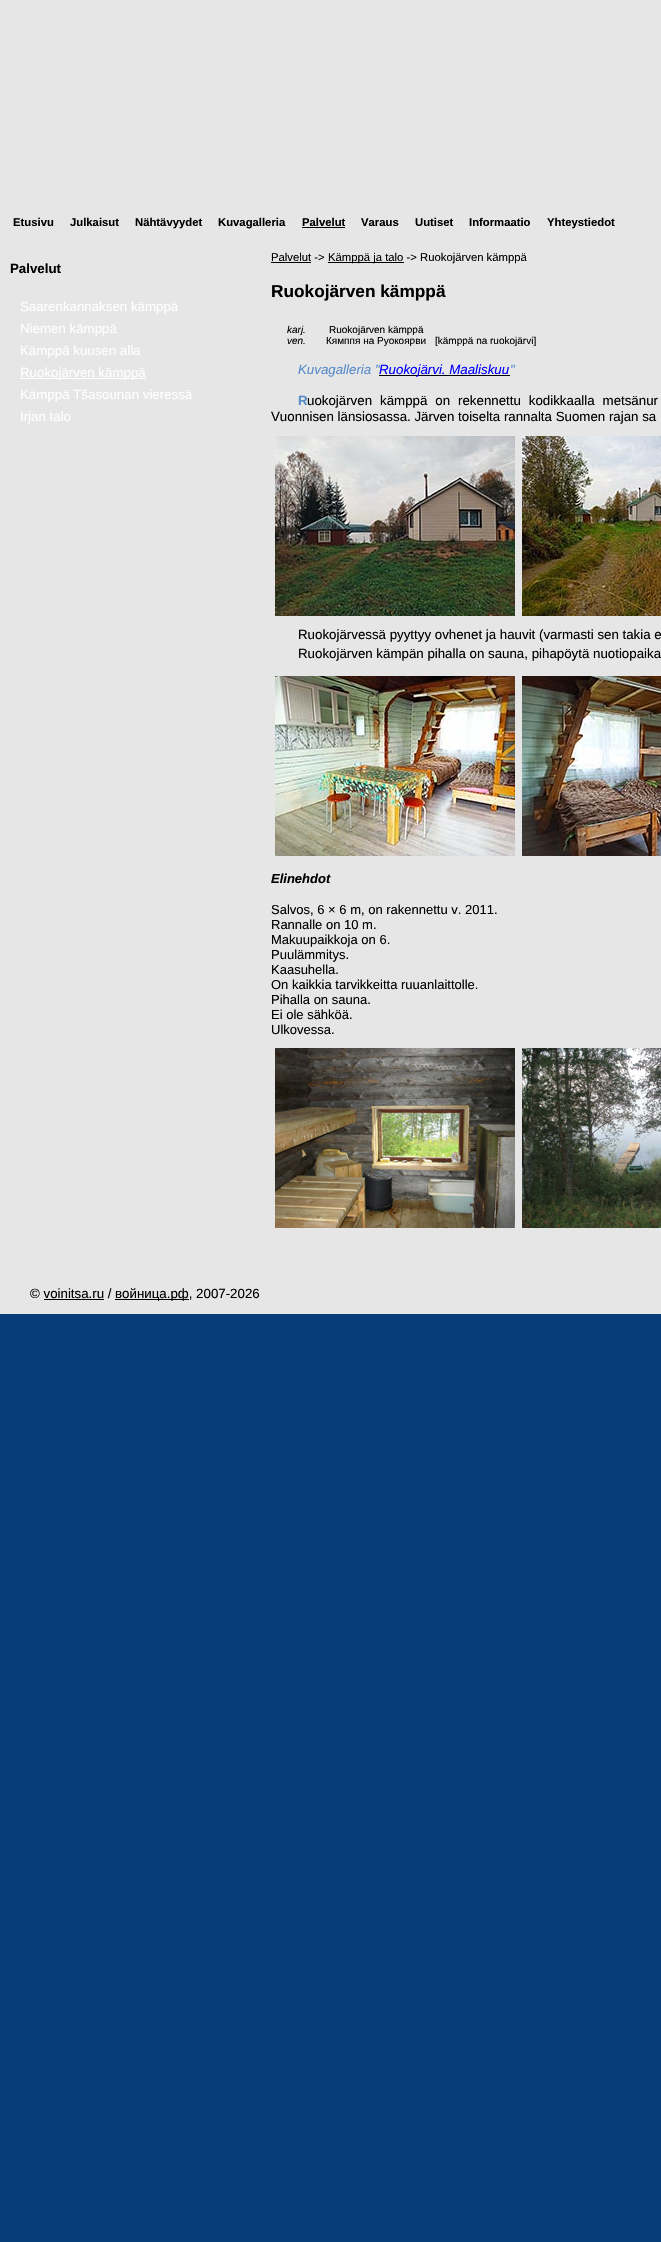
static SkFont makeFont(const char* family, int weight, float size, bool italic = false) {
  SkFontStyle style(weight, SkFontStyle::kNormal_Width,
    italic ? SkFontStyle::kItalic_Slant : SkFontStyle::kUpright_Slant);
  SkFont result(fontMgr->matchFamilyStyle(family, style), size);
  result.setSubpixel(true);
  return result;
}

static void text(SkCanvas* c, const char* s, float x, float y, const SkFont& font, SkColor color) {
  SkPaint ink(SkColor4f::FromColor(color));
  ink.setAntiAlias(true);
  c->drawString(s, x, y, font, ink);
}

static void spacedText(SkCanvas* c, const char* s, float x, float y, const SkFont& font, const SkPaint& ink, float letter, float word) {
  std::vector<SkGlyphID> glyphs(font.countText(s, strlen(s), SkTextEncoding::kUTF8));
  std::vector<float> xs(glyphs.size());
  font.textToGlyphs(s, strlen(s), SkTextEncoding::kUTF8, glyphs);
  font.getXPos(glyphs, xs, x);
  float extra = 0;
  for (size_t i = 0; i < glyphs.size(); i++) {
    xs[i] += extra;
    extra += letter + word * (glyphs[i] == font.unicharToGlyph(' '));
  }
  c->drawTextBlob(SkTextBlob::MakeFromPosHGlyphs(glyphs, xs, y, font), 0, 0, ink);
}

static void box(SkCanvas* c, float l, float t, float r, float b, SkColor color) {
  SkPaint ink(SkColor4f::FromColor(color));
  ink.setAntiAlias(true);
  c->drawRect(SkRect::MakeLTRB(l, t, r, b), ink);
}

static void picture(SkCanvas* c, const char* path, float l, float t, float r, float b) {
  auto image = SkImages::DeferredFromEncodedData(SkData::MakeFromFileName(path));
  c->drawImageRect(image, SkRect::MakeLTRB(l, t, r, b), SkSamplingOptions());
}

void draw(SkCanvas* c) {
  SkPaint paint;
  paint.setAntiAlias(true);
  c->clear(0xff063c78);
  box(c, 0, 0, 661, 1314, 0xffe6e6e6);
  SkFont face1 = makeFont("Liberation Sans", 700, 11.3f);
  text(c, "Etusivu", 13, 226, face1, 0xff000000);
  text(c, "Julkaisut", 70, 226, face1, 0xff000000);
  text(c, "Nähtävyydet", 135, 226, face1, 0xff000000);
  text(c, "Kuvagalleria", 218, 226, face1, 0xff000000);
  text(c, "Palvelut", 302, 226, face1, 0xff000000);
  box(c, 302, 227, 345, 228, 0xff000000);
  text(c, "Varaus", 361, 226, face1, 0xff000000);
  text(c, "Uutiset", 415, 226, face1, 0xff000000);
  text(c, "Informaatio", 469, 226, face1, 0xff000000);
  text(c, "Yhteystiedot", 547, 226, face1, 0xff000000);
  SkFont face2 = makeFont("Liberation Sans", 700, 13.3f);
  text(c, "Palvelut", 10, 273, face2, 0xff000000);
  SkFont face3 = makeFont("Liberation Sans", 400, 13.3f);
  text(c, "Saarenkannaksen kämppä", 20, 311, face3, 0xffffffff);
  text(c, "Niemen kämppä", 20, 333, face3, 0xffffffff);
  text(c, "Kämppä kuusen alla", 20, 355, face3, 0xffffffff);
  box(c, 20, 378, 146, 379, 0xffffffff);
  text(c, "Ruokojärven kämppä", 20, 377, face3, 0xffffffff);
  text(c, "Kämppä Tšasounan vieressä", 20, 399, face3, 0xffffffff);
  text(c, "Irjan talo", 20, 421, face3, 0xffffffff);
  SkFont face4 = makeFont("Liberation Sans", 400, 11.3f);
  text(c, "Palvelut ->", 271, 261, face4, 0xff000000);
  box(c, 271, 262, 311, 263, 0xff000000);
  box(c, 328, 262, 404, 263, 0xff000000);
  text(c, "Kämppä ja talo -> Ruokojärven kämppä", 328, 261, face4, 0xff000000);
  SkFont face5 = makeFont("Liberation Sans", 700, 17.25f);
  text(c, "Ruokojärven kämppä", 271, 297, face5, 0xff000000);
  SkFont face6 = makeFont("Liberation Sans", 400, 10, true);
  text(c, "karj.", 287, 333, face6, 0xff000000);
  SkFont face7 = makeFont("Liberation Sans", 400, 10);
  text(c, "Ruokojärven kämppä", 329, 333, face7, 0xff000000);
  text(c, "ven.", 287, 344, face6, 0xff000000);
  text(c, "Кямппя на Руокоярви", 326, 344, face7, 0xff000000);
  text(c, "[kämppä na ruokojärvi]", 435, 344, face7, 0xff000000);
  SkFont face8 = makeFont("Liberation Sans", 400, 13.3f, true);
  text(c, "Kuvagalleria \"", 298, 374, face8, 0xff588cc8);
  box(c, 379, 375, 510, 376, 0xff000000);
  text(c, "Ruokojärvi. Maaliskuu", 379, 374, face8, 0xff0000ff);
  text(c, "\"", 510, 374, face8, 0xff588cc8);
  text(c, "R", 298, 405, face2, 0xff588cc8);
  paint.setColor(0xff000000);
  spacedText(c, "uokojärven kämppä on rekennettu kodikkaalla metsänur", 307, 405, face3, paint, 0, 4.25f);
  text(c, "Vuonnisen länsiosassa. Järven toiselta rannalta Suomen rajan sa", 271, 421, face3, 0xff000000);
  picture(c, "img_01.png", 275, 436, 515, 616);
  picture(c, "img_02.png", 522, 436, 661, 616);
  text(c, "Ruokojärvessä pyyttyy ovhenet ja hauvit (varmasti sen takia e", 298, 639, face3, 0xff000000);
  text(c, "Ruokojärven kämpän pihalla on sauna, pihapöytä nuotiopaika", 298, 658, face3, 0xff000000);
  picture(c, "img_03.png", 275, 676, 515, 856);
  picture(c, "img_04.png", 522, 676, 661, 856);
  SkFont face9 = makeFont("Liberation Sans", 700, 13, true);
  text(c, "Elinehdot", 271, 883, face9, 0xff000000);
  SkFont face10 = makeFont("Liberation Sans", 400, 13);
  text(c, "Salvos, 6 × 6 m, on rakennettu v. 2011.", 271, 914, face10, 0xff000000);
  text(c, "Rannalle on 10 m.", 271, 929, face10, 0xff000000);
  text(c, "Makuupaikkoja on 6.", 271, 944, face10, 0xff000000);
  text(c, "Puulämmitys.", 271, 959, face10, 0xff000000);
  text(c, "Kaasuhella.", 271, 974, face10, 0xff000000);
  text(c, "On kaikkia tarvikkeitta ruuanlaittolle.", 271, 989, face10, 0xff000000);
  text(c, "Pihalla on sauna.", 271, 1004, face10, 0xff000000);
  text(c, "Ei ole sähköä.", 271, 1019, face10, 0xff000000);
  text(c, "Ulkovessa.", 271, 1034, face10, 0xff000000);
  picture(c, "img_05.png", 275, 1048, 515, 1228);
  picture(c, "img_06.png", 522, 1048, 661, 1228);
  text(c, "© voinitsa.ru /", 30, 1298, face3, 0xff000000);
  box(c, 115, 1299, 189, 1300, 0xff000000);
  text(c, "войница.рф, 2007-2026", 115, 1298, face3, 0xff000000);
  box(c, 44, 1299, 104, 1300, 0xff000000);
}
